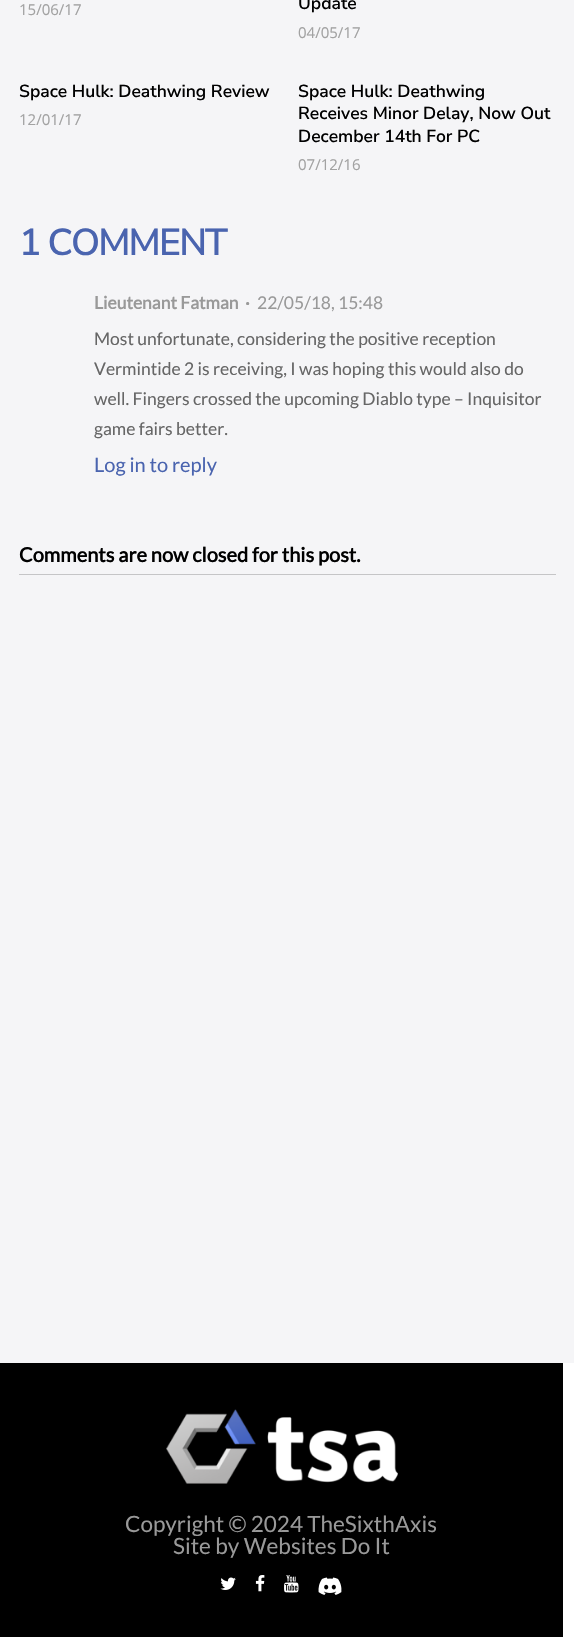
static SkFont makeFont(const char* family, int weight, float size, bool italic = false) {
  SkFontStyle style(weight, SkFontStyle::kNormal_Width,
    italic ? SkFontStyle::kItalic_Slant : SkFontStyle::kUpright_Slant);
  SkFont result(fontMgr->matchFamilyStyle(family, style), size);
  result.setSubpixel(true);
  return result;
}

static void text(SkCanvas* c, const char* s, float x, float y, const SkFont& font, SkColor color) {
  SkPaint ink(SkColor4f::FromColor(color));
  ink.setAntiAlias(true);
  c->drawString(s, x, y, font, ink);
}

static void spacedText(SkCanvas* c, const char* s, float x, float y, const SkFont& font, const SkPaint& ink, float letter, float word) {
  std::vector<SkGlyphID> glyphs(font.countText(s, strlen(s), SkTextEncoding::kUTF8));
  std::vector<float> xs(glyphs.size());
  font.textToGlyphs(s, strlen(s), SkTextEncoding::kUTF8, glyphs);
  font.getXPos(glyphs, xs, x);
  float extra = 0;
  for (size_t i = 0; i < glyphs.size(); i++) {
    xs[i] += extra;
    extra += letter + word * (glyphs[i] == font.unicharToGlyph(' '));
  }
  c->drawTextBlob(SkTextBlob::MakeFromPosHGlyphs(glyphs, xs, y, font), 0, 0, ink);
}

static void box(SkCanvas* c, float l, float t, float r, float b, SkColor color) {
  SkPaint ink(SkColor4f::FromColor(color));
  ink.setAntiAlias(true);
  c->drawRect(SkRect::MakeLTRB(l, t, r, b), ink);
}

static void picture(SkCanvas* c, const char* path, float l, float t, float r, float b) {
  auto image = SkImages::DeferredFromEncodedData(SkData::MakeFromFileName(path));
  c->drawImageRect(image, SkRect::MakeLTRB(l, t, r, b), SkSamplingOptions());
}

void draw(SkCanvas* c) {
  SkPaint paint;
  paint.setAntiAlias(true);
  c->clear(0xfff5f5f7);
  SkFont face1 = makeFont("Open Sans", 400, 15);
  text(c, "15/06/17", 19, 15, face1, 0xffa2a2a2);
  SkFont face2 = makeFont("Nunito Sans", 600, 17.5f);
  text(c, "Update", 298, 9, face2, 0xff000000);
  text(c, "04/05/17", 298, 38, face1, 0xffa2a2a2);
  text(c, "Space Hulk: Deathwing Review", 19, 97, face2, 0xff000000);
  text(c, "12/01/17", 19, 125, face1, 0xffa2a2a2);
  text(c, "Space Hulk: Deathwing", 298, 97, face2, 0xff000000);
  text(c, "Receives Minor Delay, Now Out", 298, 119, face2, 0xff000000);
  text(c, "December 14th For PC", 298, 142, face2, 0xff000000);
  text(c, "07/12/16", 298, 170, face1, 0xffa2a2a2);
  SkFont face3 = makeFont("Nunito Sans", 600, 37.5f);
  paint.setColor(0xff4a64af);
  spacedText(c, "1 COMMENT", 19, 255, face3, paint, -1.9f, 0);
  SkFont face4 = makeFont("Lato", 700, 17.5f);
  text(c, "Lieutenant Fatman", 94, 309, face4, 0xff999999);
  text(c, "·", 245, 309, face4, 0xff999999);
  SkFont face5 = makeFont("Lato", 400, 17.5f);
  text(c, "22/05/18, 15:48", 257, 309, face5, 0xff999999);
  text(c, "Most unfortunate, considering the positive reception", 94, 345, face5, 0xff666666);
  text(c, "Vermintide 2 is receiving, I was hoping this would also do", 94, 375, face5, 0xff666666);
  text(c, "well. Fingers crossed the upcoming Diablo type – Inquisitor", 94, 405, face5, 0xff666666);
  text(c, "game fairs better.", 94, 435, face5, 0xff666666);
  SkFont face6 = makeFont("Lato", 400, 20);
  text(c, "Log in to reply", 94, 472, face6, 0xff4a64af);
  SkFont face7 = makeFont("Lato", 700, 20);
  text(c, "Comments are now closed for this post.", 19, 562, face7, 0xff000000);
  box(c, 19, 574, 556, 575, 0xffc5c5c7);
  box(c, 0, 1363, 563, 1637, 0xff000000);
  box(c, 563, 1363, 574, 1637, 0xffffffff);
  picture(c, "img_01.png", 166, 1409, 398, 1484);
  SkFont face8 = makeFont("Lato", 400, 22.5f);
  text(c, "Copyright © 2024 TheSixthAxis", 125, 1532, face8, 0xff999999);
  text(c, "Site by Websites Do It", 173, 1554, face8, 0xff999999);
  picture(c, "img_02.png", 220, 1577, 236, 1590);
  picture(c, "img_03.png", 255, 1575, 265, 1592);
  picture(c, "img_04.png", 284, 1575, 299, 1593);
  picture(c, "img_05.png", 318, 1577, 342, 1595);
}
